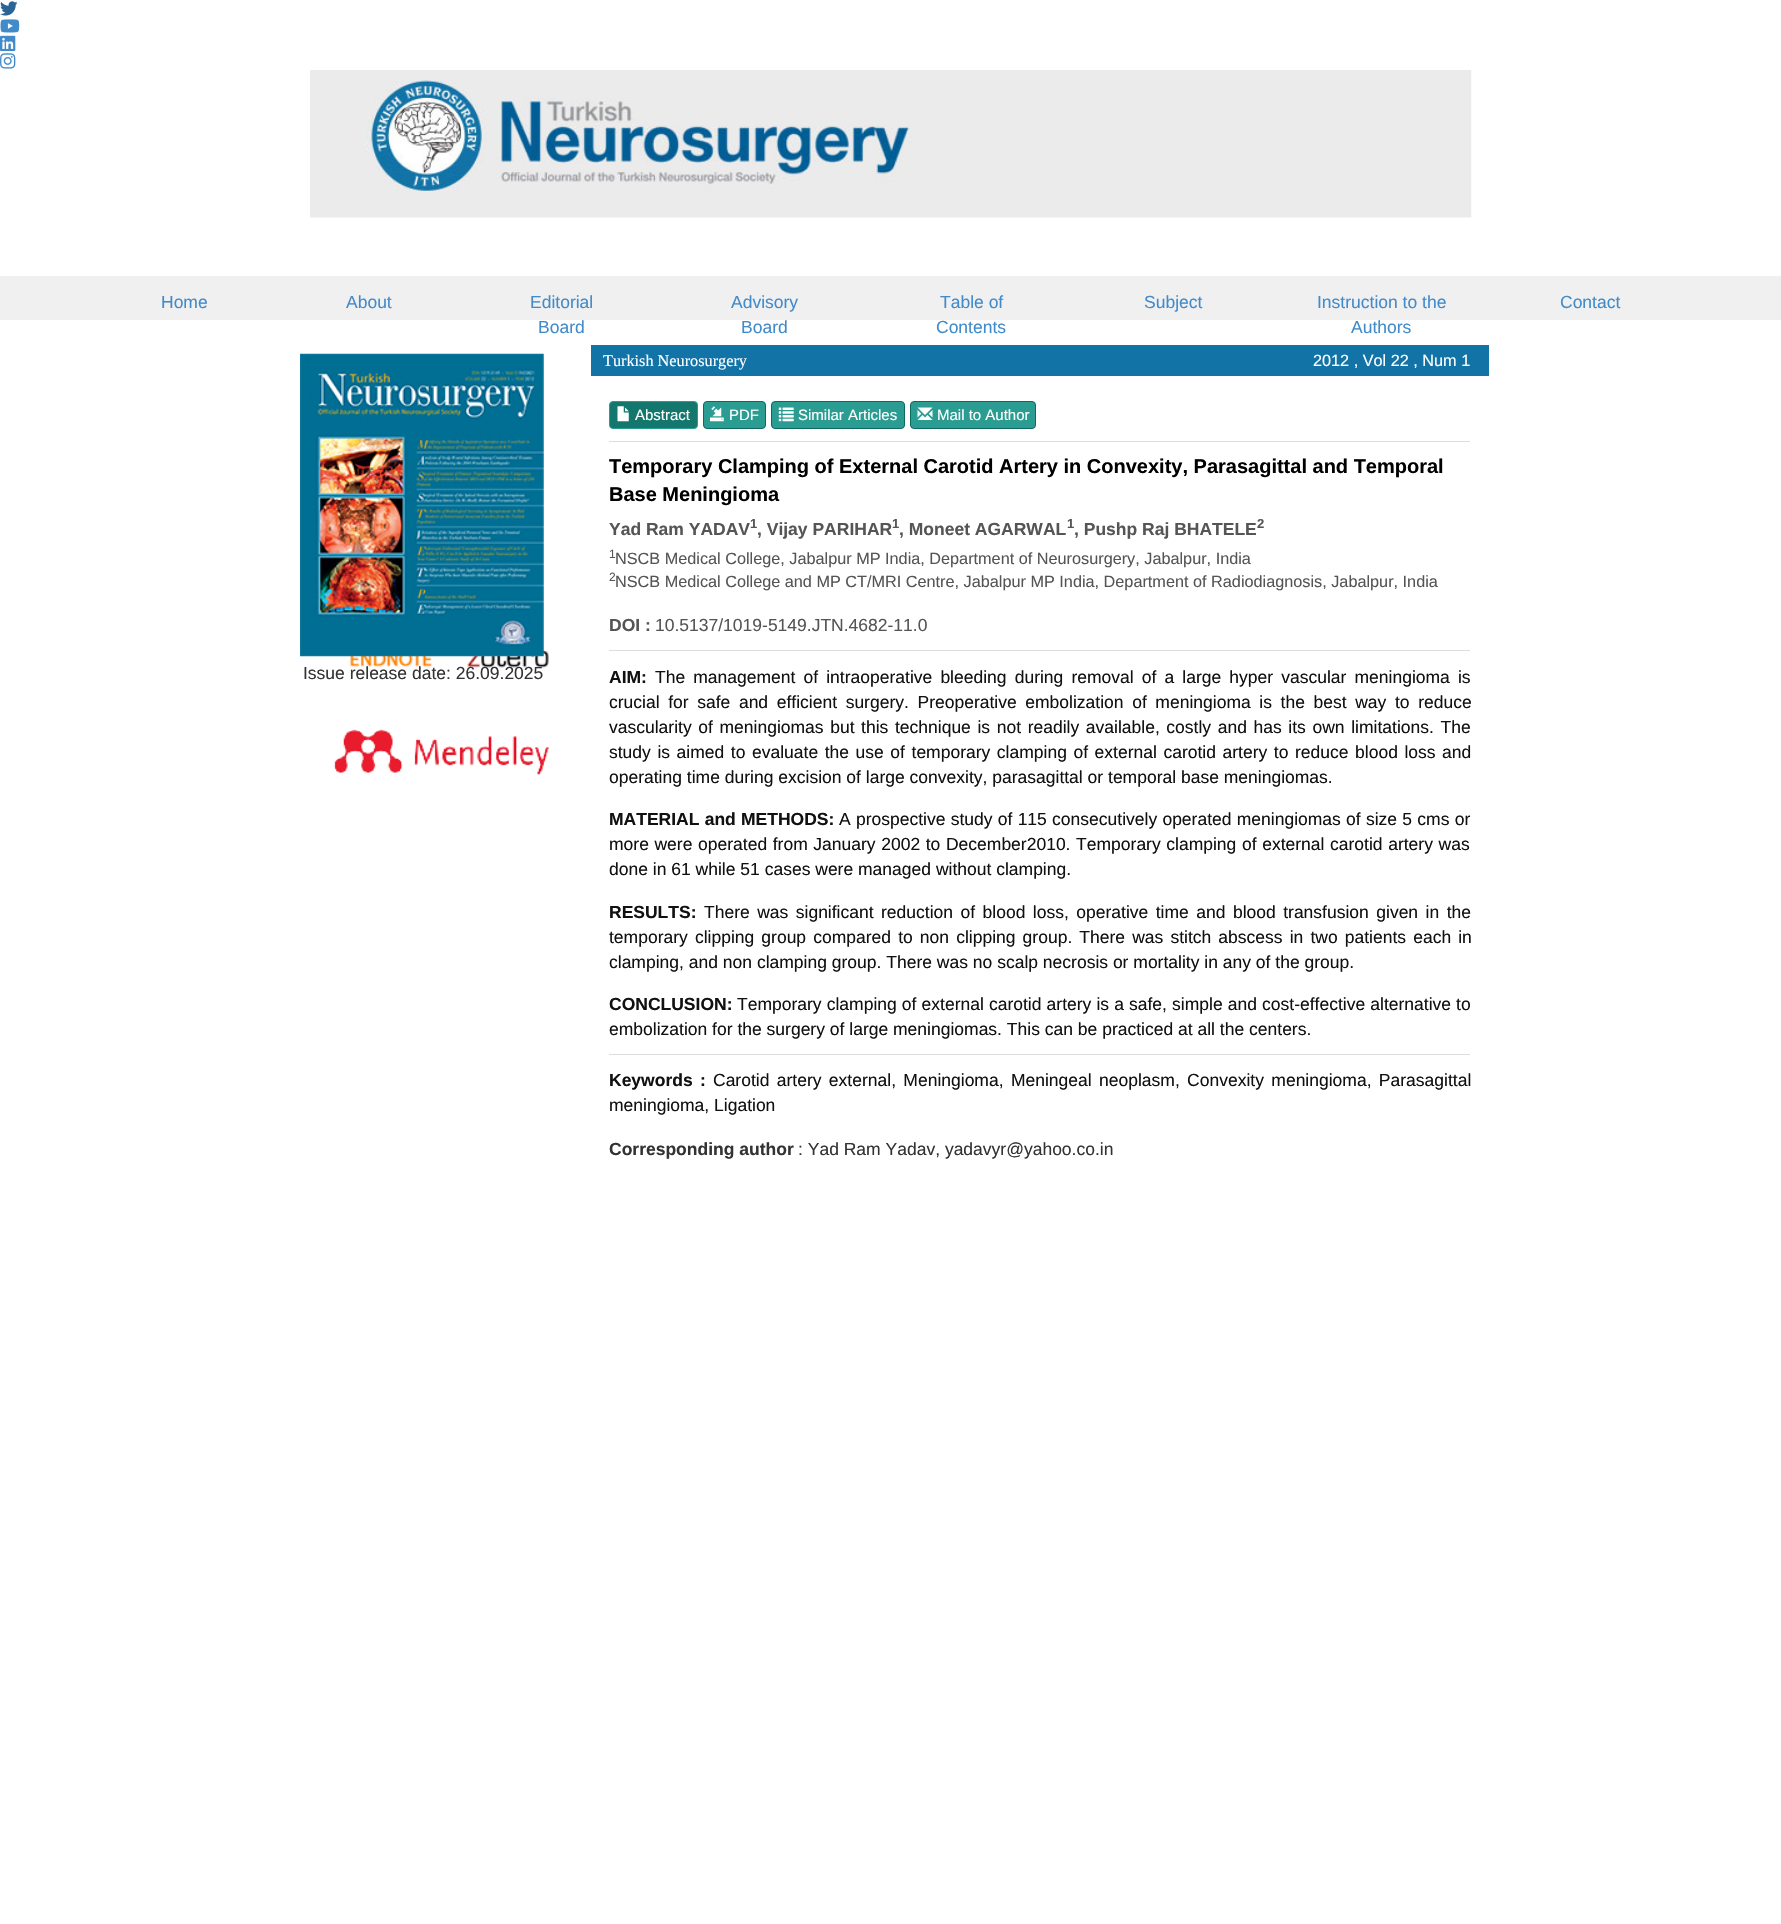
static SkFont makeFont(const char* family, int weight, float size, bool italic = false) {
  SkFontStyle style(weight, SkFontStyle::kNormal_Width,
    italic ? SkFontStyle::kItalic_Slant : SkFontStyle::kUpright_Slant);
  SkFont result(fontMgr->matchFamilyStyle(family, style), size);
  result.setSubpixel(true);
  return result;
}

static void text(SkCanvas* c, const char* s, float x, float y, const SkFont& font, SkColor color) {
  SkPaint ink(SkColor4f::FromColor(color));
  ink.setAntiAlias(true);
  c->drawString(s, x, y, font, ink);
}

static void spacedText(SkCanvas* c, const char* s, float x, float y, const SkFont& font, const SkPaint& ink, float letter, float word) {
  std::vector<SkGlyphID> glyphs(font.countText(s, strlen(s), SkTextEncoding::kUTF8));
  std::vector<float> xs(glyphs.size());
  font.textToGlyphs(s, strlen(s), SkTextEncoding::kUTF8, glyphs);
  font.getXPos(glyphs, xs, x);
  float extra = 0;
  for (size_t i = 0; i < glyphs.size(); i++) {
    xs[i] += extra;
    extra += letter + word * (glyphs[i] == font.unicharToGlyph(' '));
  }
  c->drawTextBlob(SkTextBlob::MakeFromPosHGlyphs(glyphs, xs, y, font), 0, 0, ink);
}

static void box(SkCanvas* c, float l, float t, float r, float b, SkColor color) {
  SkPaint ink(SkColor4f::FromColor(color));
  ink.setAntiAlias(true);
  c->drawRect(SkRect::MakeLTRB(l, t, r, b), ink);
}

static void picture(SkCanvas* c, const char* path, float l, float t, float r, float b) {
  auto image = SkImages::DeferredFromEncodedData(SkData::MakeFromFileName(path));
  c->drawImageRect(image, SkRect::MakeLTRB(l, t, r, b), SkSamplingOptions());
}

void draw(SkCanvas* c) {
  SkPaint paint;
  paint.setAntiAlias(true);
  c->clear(0xffffffff);
  picture(c, "img_01.png", 0, 1, 18, 16);
  picture(c, "img_02.png", 0, 19, 20, 33);
  picture(c, "img_03.png", 0, 35, 16, 52);
  picture(c, "img_04.png", 0, 53, 16, 69);
  picture(c, "img_05.png", 310, 70, 1472, 218);
  box(c, 0, 276, 1781, 320, 0xfff0f0f0);
  SkFont face1 = makeFont("Liberation Sans", 400, 17.5f);
  text(c, "Home", 161, 308, face1, 0xff428bca);
  text(c, "About", 346, 308, face1, 0xff428bca);
  text(c, "Editorial", 530, 308, face1, 0xff428bca);
  text(c, "Board", 538, 333, face1, 0xff428bca);
  text(c, "Advisory", 731, 308, face1, 0xff428bca);
  text(c, "Board", 741, 333, face1, 0xff428bca);
  text(c, "Table of", 940, 308, face1, 0xff428bca);
  text(c, "Contents", 936, 333, face1, 0xff428bca);
  text(c, "Subject", 1144, 308, face1, 0xff428bca);
  text(c, "Instruction to the", 1317, 308, face1, 0xff428bca);
  text(c, "Authors", 1351, 333, face1, 0xff428bca);
  text(c, "Contact", 1560, 308, face1, 0xff428bca);
  picture(c, "img_06.png", 349, 656, 433, 667);
  picture(c, "img_07.png", 467, 570, 549, 668);
  picture(c, "img_08.png", 300, 353, 544, 657);
  text(c, "Issue release date: 26.09.2025", 303, 679, face1, 0xff333333);
  picture(c, "img_09.png", 333, 729, 549, 776);
  box(c, 591, 345, 1489, 376, 0xff1273a7);
  SkFont face2 = makeFont("Liberation Serif", 400, 16.25f);
  text(c, "Turkish Neurosurgery", 603, 366, face2, 0xffffffff);
  SkFont face3 = makeFont("Liberation Sans", 400, 16.25f);
  text(c, "2012 , Vol 22 , Num 1", 1313, 366, face3, 0xffffffff);
  paint.setColor(0xff14776e);
  c->drawRoundRect(SkRect::MakeLTRB(609.5f, 401.5f, 697.5f, 428.5f), 3.5f, 3.5f, paint);
  paint.setStyle(SkPaint::kStroke_Style);
  paint.setStrokeWidth(1);
  paint.setColor(0xff2a9c91);
  c->drawRoundRect(SkRect::MakeLTRB(609.5f, 401.5f, 697.5f, 428.5f), 3.5f, 3.5f, paint);
  picture(c, "img_10.png", 617, 406, 629, 422);
  SkFont face4 = makeFont("Liberation Sans", 400, 15);
  text(c, "Abstract", 635, 420, face4, 0xffffffff);
  paint.setStyle(SkPaint::kFill_Style);
  c->drawRoundRect(SkRect::MakeLTRB(703.5f, 401.5f, 765.5f, 428.5f), 3.5f, 3.5f, paint);
  paint.setStyle(SkPaint::kStroke_Style);
  paint.setColor(0xff0e6960);
  c->drawRoundRect(SkRect::MakeLTRB(703.5f, 401.5f, 765.5f, 428.5f), 3.5f, 3.5f, paint);
  picture(c, "img_11.png", 710, 406, 724, 422);
  text(c, "PDF", 729, 420, face4, 0xffffffff);
  paint.setStyle(SkPaint::kFill_Style);
  paint.setColor(0xff2a9c91);
  c->drawRoundRect(SkRect::MakeLTRB(771.5f, 401.5f, 904.5f, 428.5f), 3.5f, 3.5f, paint);
  paint.setStyle(SkPaint::kStroke_Style);
  paint.setColor(0xff0e6960);
  c->drawRoundRect(SkRect::MakeLTRB(771.5f, 401.5f, 904.5f, 428.5f), 3.5f, 3.5f, paint);
  picture(c, "img_12.png", 778, 407, 794, 422);
  text(c, "Similar Articles", 798, 420, face4, 0xffffffff);
  paint.setStyle(SkPaint::kFill_Style);
  paint.setColor(0xff2a9c91);
  c->drawRoundRect(SkRect::MakeLTRB(910.5f, 401.5f, 1035.5f, 428.5f), 3.5f, 3.5f, paint);
  paint.setStyle(SkPaint::kStroke_Style);
  paint.setColor(0xff0e6960);
  c->drawRoundRect(SkRect::MakeLTRB(910.5f, 401.5f, 1035.5f, 428.5f), 3.5f, 3.5f, paint);
  picture(c, "img_13.png", 917, 407, 933, 420);
  text(c, "Mail to Author", 937, 420, face4, 0xffffffff);
  box(c, 609, 441, 1470, 442, 0xffdedede);
  SkFont face5 = makeFont("Liberation Sans", 700, 20);
  text(c, "Temporary Clamping of External Carotid Artery in Convexity, Parasagittal and Temporal", 609, 473, face5, 0xff000000);
  text(c, "Base Meningioma", 609, 501, face5, 0xff000000);
  SkFont face6 = makeFont("Liberation Sans", 700, 17.5f);
  text(c, "Yad Ram YADAV", 609, 535, face6, 0xff555555);
  SkFont face7 = makeFont("Liberation Sans", 700, 13);
  text(c, "1", 750, 528, face7, 0xff555555);
  text(c, ", Vijay PARIHAR", 757, 535, face6, 0xff555555);
  text(c, "1", 892, 528, face7, 0xff555555);
  text(c, ", Moneet AGARWAL", 899, 535, face6, 0xff555555);
  text(c, "1", 1067, 528, face7, 0xff555555);
  text(c, ", Pushp Raj BHATELE", 1074, 535, face6, 0xff555555);
  text(c, "2", 1257, 528, face7, 0xff555555);
  SkFont face8 = makeFont("Liberation Sans", 400, 12);
  text(c, "1", 609, 558, face8, 0xff555555);
  text(c, "NSCB Medical College, Jabalpur MP India, Department of Neurosurgery, Jabalpur, India", 615, 564, face3, 0xff555555);
  text(c, "2", 609, 581, face8, 0xff555555);
  text(c, "NSCB Medical College and MP CT/MRI Centre, Jabalpur MP India, Department of Radiodiagnosis, Jabalpur, India", 615, 587, face3, 0xff555555);
  text(c, "DOI :", 609, 631, face6, 0xff555555);
  text(c, "10.5137/1019-5149.JTN.4682-11.0", 655, 631, face1, 0xff555555);
  box(c, 609, 650, 1470, 651, 0xffdedede);
  text(c, "AIM:", 609, 683, face6, 0xff111111);
  paint.setStyle(SkPaint::kFill_Style);
  paint.setColor(0xff111111);
  spacedText(c, "The management of intraoperative bleeding during removal of a large hyper vascular meningioma is", 655, 683, face1, paint, 0, 3.25f);
  spacedText(c, "crucial for safe and efficient surgery. Preoperative embolization of meningioma is the best way to reduce", 609, 708, face1, paint, 0, 3.75f);
  spacedText(c, "vascularity of meningiomas but this technique is not readily available, costly and has its own limitations. The", 609, 733, face1, paint, 0, 1.75f);
  spacedText(c, "study is aimed to evaluate the use of temporary clamping of external carotid artery to reduce blood loss and", 609, 758, face1, paint, 0, 1.7f);
  text(c, "operating time during excision of large convexity, parasagittal or temporal base meningiomas.", 609, 783, face1, 0xff111111);
  spacedText(c, "MATERIAL and METHODS:", 609, 825, face6, paint, 0, 0.4f);
  spacedText(c, "A prospective study of 115 consecutively operated meningiomas of size 5 cms or", 839, 825, face1, paint, 0, 0.4f);
  spacedText(c, "more were operated from January 2002 to December2010. Temporary clamping of external carotid artery was", 609, 850, face1, paint, 0, 0.75f);
  text(c, "done in 61 while 51 cases were managed without clamping.", 609, 875, face1, 0xff111111);
  text(c, "RESULTS:", 609, 918, face6, 0xff111111);
  spacedText(c, "There was significant reduction of blood loss, operative time and blood transfusion given in the", 704, 918, face1, paint, 0, 2.6f);
  spacedText(c, "temporary clipping group compared to non clipping group. There was stitch abscess in two patients each in", 609, 943, face1, paint, 0, 2.25f);
  text(c, "clamping, and non clamping group. There was no scalp necrosis or mortality in any of the group.", 609, 968, face1, 0xff111111);
  text(c, "CONCLUSION:", 609, 1010, face6, 0xff111111);
  spacedText(c, "Temporary clamping of external carotid artery is a safe, simple and cost-effective alternative to", 737, 1010, face1, paint, 0, 0.25f);
  text(c, "embolization for the surgery of large meningiomas. This can be practiced at all the centers.", 609, 1035, face1, 0xff111111);
  box(c, 609, 1054, 1470, 1055, 0xffdedede);
  spacedText(c, "Keywords :", 609, 1086, face6, paint, 0, 2.5f);
  spacedText(c, "Carotid artery external, Meningioma, Meningeal neoplasm, Convexity meningioma, Parasagittal", 713, 1086, face1, paint, 0, 2.5f);
  text(c, "meningioma, Ligation", 609, 1111, face1, 0xff111111);
  text(c, "Corresponding author", 609, 1155, face6, 0xff333333);
  text(c, ": Yad Ram Yadav, yadavyr@yahoo.co.in", 798, 1155, face1, 0xff333333);
}
